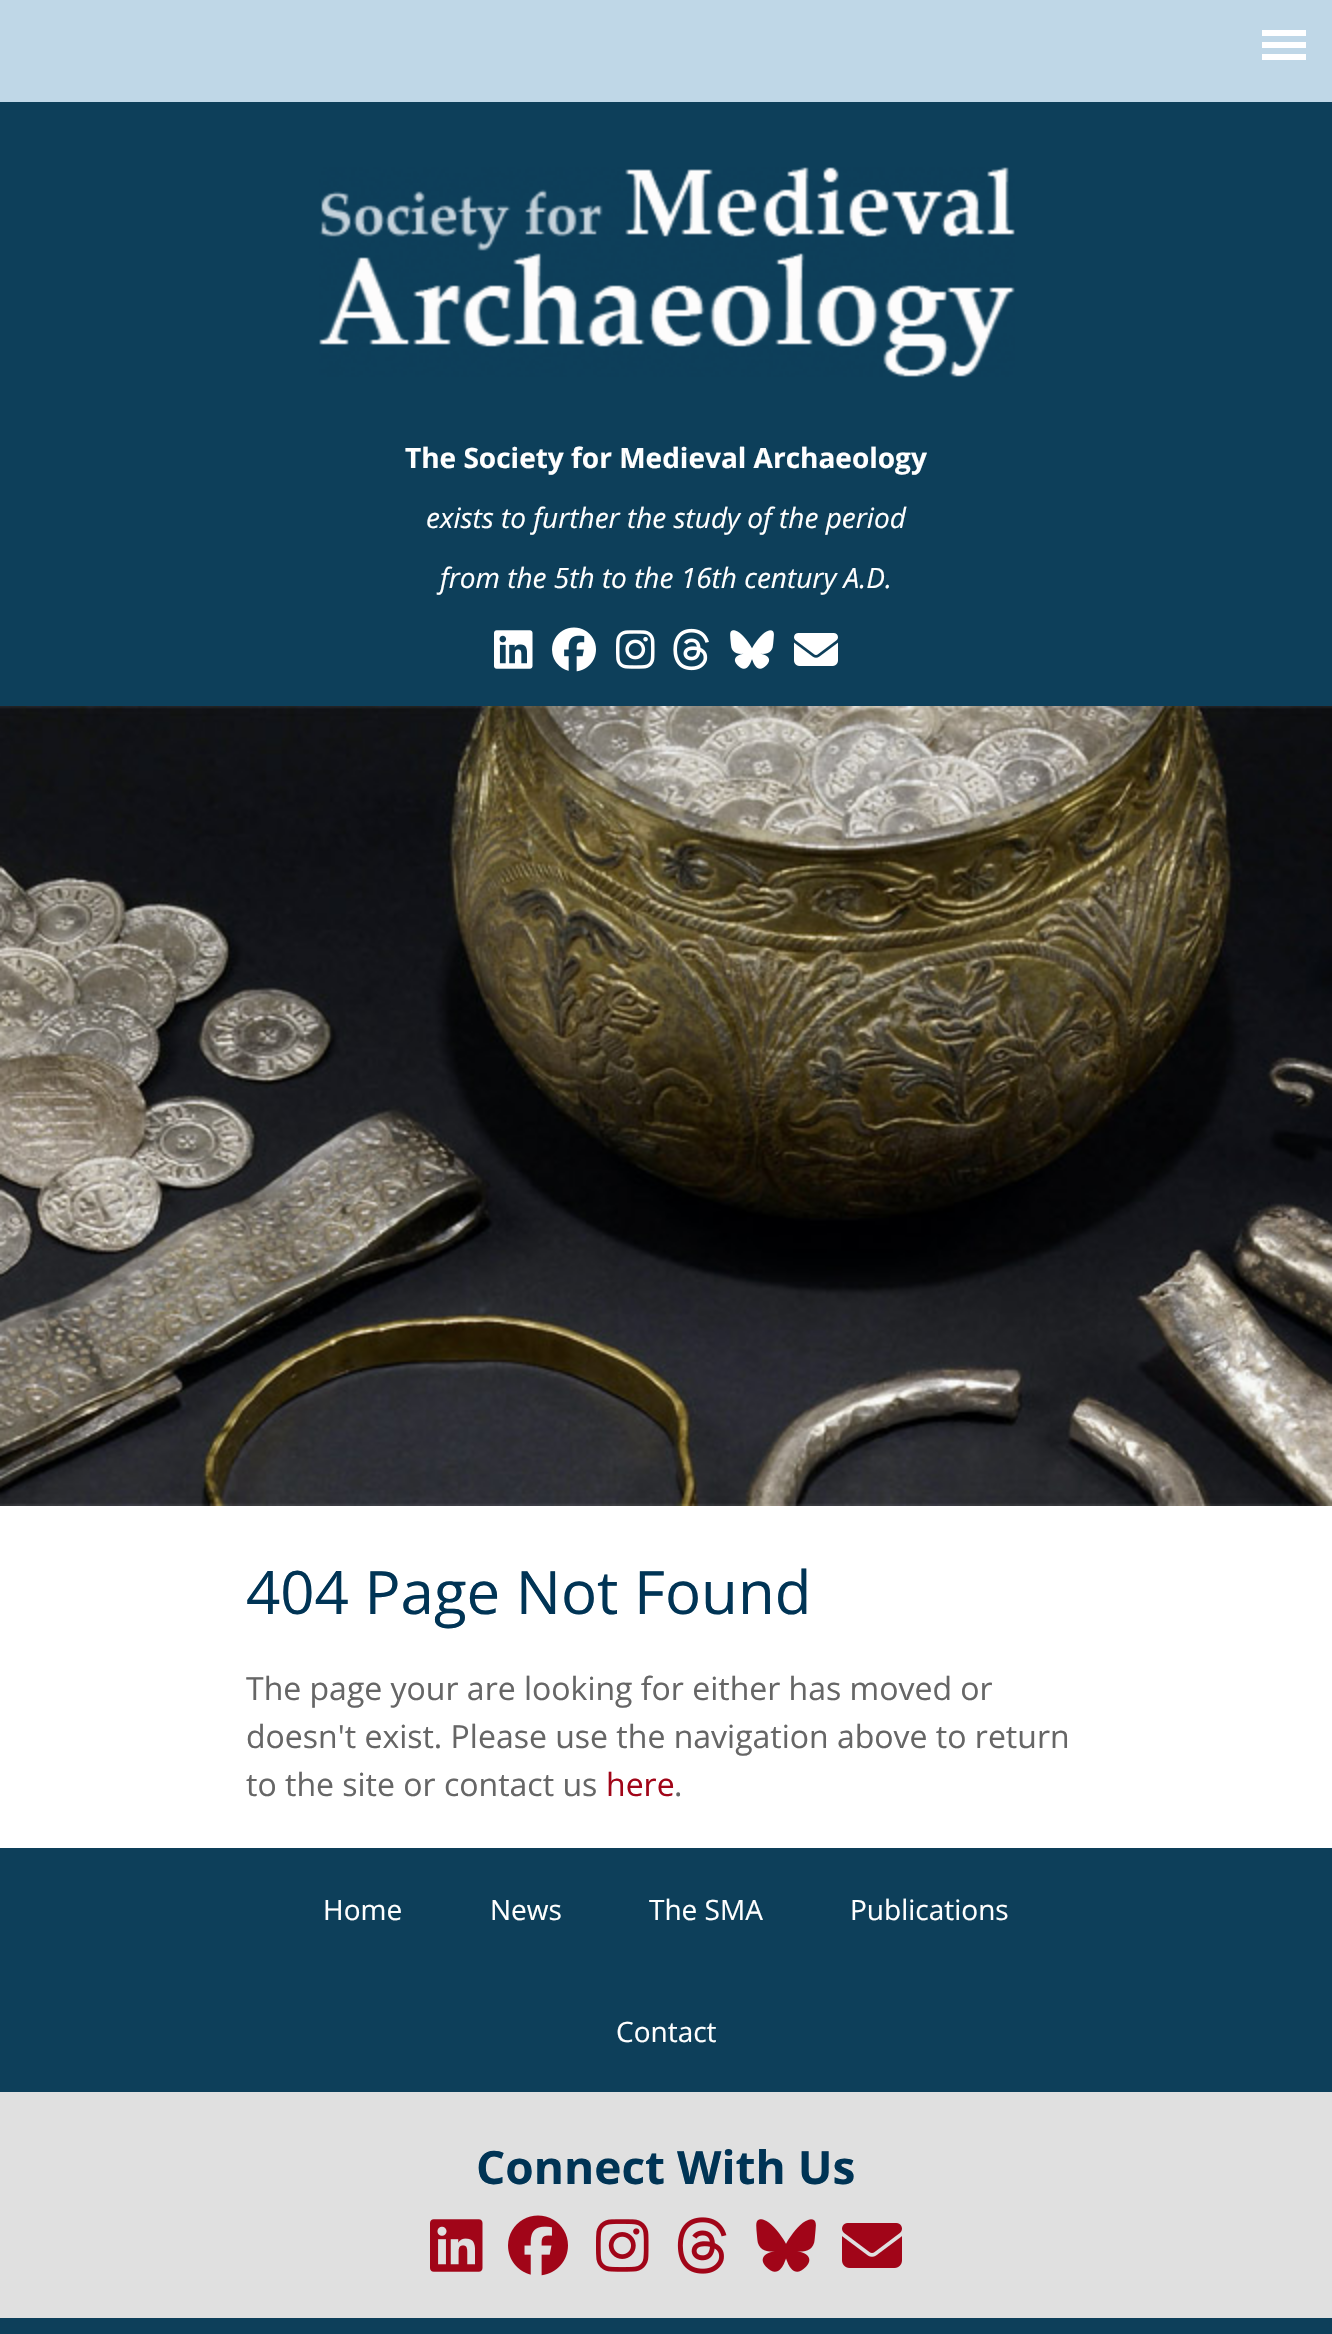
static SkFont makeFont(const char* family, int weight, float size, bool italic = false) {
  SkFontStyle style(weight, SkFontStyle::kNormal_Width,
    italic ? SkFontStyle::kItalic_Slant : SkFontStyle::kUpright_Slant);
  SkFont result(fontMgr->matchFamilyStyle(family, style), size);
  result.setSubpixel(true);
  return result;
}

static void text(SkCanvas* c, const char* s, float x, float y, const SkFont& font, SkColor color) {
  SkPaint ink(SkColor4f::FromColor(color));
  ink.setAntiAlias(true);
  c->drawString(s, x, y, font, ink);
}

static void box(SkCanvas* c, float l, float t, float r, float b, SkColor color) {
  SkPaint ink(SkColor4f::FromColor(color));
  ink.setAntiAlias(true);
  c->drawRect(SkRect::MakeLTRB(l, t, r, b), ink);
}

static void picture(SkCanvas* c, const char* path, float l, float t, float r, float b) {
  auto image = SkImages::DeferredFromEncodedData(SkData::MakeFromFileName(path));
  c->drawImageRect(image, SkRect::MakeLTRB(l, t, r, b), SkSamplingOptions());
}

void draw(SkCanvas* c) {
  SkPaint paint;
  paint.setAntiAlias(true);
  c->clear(0xffffffff);
  box(c, 0, 0, 1332, 102, 0xffbfd7e7);
  box(c, 1262, 30, 1306, 36, 0xffffffff);
  box(c, 1262, 42, 1306, 48, 0xffffffff);
  box(c, 1262, 54, 1306, 60, 0xffffffff);
  box(c, 0, 102, 1332, 706, 0xff0d3f5a);
  picture(c, "img_01.png", 319, 167, 1015, 377);
  SkFont face1 = makeFont("Open Sans", 700, 28);
  text(c, "The Society for Medieval Archaeology", 405, 468, face1, 0xffffffff);
  SkFont face2 = makeFont("Open Sans", 400, 28, true);
  text(c, "exists to further the study of the period", 426, 528, face2, 0xffffffff);
  text(c, "from the 5th to the 16th century A.D.", 440, 588, face2, 0xffffffff);
  picture(c, "img_02.png", 494, 630, 533, 669);
  picture(c, "img_03.png", 552, 627, 596, 672);
  picture(c, "img_04.png", 616, 630, 655, 669);
  picture(c, "img_05.png", 673, 628, 709, 671);
  picture(c, "img_06.png", 730, 630, 774, 669);
  picture(c, "img_07.png", 794, 633, 838, 666);
  picture(c, "img_08.png", 0, 706, 1332, 1506);
  SkFont face3 = makeFont("Open Sans", 400, 60);
  text(c, "404 Page Not Found", 246, 1614, face3, 0xff003455);
  SkFont face4 = makeFont("Open Sans", 400, 32);
  text(c, "The page your are looking for either has moved or", 246, 1700, face4, 0xff666666);
  text(c, "doesn't exist. Please use the navigation above to return", 246, 1748, face4, 0xff666666);
  text(c, "to the site or contact us", 246, 1796, face4, 0xff666666);
  text(c, "here", 606, 1796, face4, 0xffa10518);
  text(c, ".", 674, 1796, face4, 0xff666666);
  box(c, 0, 1848, 1332, 2092, 0xff0d3f5a);
  SkFont face5 = makeFont("Open Sans", 400, 28);
  text(c, "Home", 323, 1920, face5, 0xffffffff);
  text(c, "News", 490, 1920, face5, 0xffffffff);
  text(c, "The SMA", 649, 1920, face5, 0xffffffff);
  text(c, "Publications", 850, 1920, face5, 0xffffffff);
  text(c, "Contact", 616, 2042, face5, 0xffffffff);
  box(c, 0, 2092, 1332, 2318, 0xffe0e0e0);
  SkFont face6 = makeFont("Open Sans", 700, 46);
  text(c, "Connect With Us", 476, 2184, face6, 0xff003455);
  picture(c, "img_09.png", 430, 2219, 483, 2272);
  picture(c, "img_10.png", 508, 2215, 568, 2276);
  picture(c, "img_11.png", 596, 2219, 649, 2272);
  picture(c, "img_12.png", 677, 2217, 727, 2274);
  picture(c, "img_13.png", 756, 2219, 816, 2272);
  picture(c, "img_14.png", 842, 2223, 902, 2268);
  box(c, 0, 2318, 1332, 2334, 0xff0d3f5a);
}
